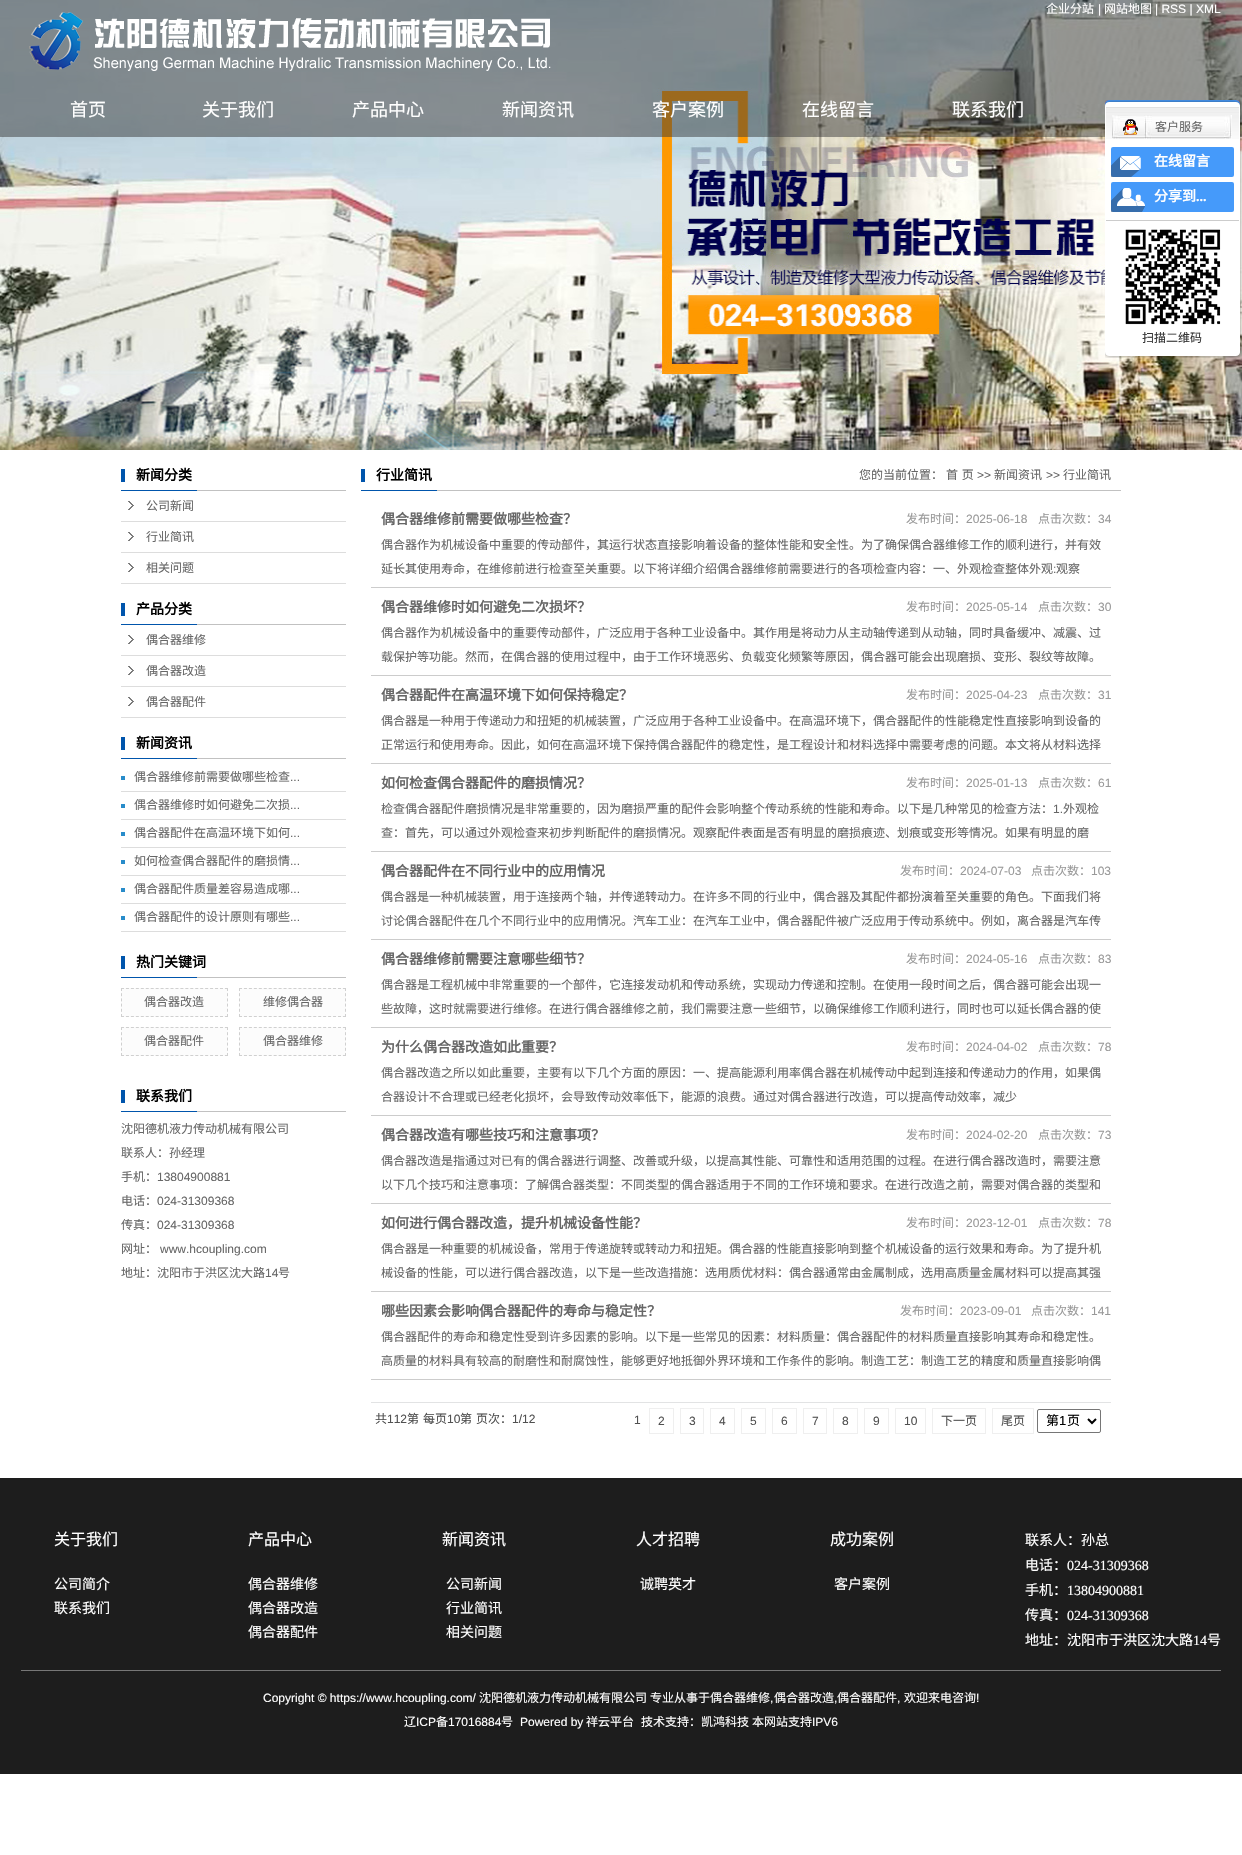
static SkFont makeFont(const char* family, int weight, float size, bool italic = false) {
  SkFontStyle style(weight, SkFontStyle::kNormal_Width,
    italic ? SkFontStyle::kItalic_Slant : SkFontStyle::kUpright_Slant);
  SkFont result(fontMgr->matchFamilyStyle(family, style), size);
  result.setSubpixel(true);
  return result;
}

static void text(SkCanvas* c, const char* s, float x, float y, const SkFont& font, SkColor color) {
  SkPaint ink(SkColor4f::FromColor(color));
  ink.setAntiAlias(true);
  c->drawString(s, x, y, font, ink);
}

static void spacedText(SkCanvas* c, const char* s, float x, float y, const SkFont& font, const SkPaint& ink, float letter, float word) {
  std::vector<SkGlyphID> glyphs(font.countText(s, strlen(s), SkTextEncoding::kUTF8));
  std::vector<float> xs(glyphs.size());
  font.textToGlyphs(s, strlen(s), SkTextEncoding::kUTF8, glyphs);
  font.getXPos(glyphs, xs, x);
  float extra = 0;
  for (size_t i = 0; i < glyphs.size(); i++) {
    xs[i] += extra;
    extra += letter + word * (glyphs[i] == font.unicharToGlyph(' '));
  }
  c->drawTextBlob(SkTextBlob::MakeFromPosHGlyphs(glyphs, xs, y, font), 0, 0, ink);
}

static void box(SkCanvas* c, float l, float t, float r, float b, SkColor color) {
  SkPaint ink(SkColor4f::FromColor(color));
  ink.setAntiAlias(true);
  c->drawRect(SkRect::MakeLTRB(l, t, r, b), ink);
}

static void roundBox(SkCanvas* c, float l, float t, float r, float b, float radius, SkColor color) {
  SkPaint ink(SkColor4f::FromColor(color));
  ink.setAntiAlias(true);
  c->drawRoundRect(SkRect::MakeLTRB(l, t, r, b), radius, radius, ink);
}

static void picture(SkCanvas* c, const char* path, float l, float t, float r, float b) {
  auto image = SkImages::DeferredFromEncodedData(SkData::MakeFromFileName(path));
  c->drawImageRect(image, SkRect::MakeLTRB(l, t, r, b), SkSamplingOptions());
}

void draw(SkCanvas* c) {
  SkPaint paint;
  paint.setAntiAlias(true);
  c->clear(0xffffffff);
  picture(c, "img_01.png", 0, 0, 1242, 450);
  box(c, 0, 0, 1242, 137, 0x803a3a3a);
  SkFont face1 = makeFont("Noto Sans CJK SC", 400, 12);
  text(c, "企业分站", 1046, 13, face1, 0xffffffff);
  SkFont face2 = makeFont("Liberation Sans", 400, 12);
  text(c, "|", 1098, 13, face2, 0xffffffff);
  text(c, "网站地图", 1104, 13, face1, 0xffffffff);
  text(c, "| RSS | XML", 1155, 13, face2, 0xffffffff);
  picture(c, "img_02.png", 29, 12, 551, 71);
  SkFont face3 = makeFont("Noto Sans CJK SC", 400, 18);
  text(c, "首页", 70, 116, face3, 0xffffffff);
  text(c, "关于我们", 202, 116, face3, 0xffffffff);
  text(c, "产品中心", 352, 116, face3, 0xffffffff);
  text(c, "新闻资讯", 502, 116, face3, 0xffffffff);
  text(c, "客户案例", 652, 116, face3, 0xffffffff);
  text(c, "在线留言", 802, 116, face3, 0xffffffff);
  text(c, "联系我们", 952, 116, face3, 0xffffffff);
  picture(c, "img_03.png", 1105, 100, 1242, 107);
  picture(c, "img_04.png", 1105, 107, 1242, 350);
  picture(c, "img_05.png", 1106, 107, 1239, 139);
  picture(c, "img_06.png", 1112, 115, 1232, 139);
  picture(c, "img_07.png", 1123, 119, 1138, 135);
  text(c, "客户服务", 1155, 131, face1, 0xff666666);
  roundBox(c, 1111, 147, 1234, 177, 2, 0xff459afa);
  picture(c, "img_08.png", 1111, 156, 1141, 177);
  SkFont face4 = makeFont("Noto Sans CJK SC", 700, 14);
  text(c, "在线留言", 1154, 166, face4, 0xffffffff);
  roundBox(c, 1111, 182, 1234, 212, 2, 0xff459afa);
  picture(c, "img_09.png", 1111, 188, 1145, 212);
  text(c, "分享到", 1154, 201, face4, 0xffffffff);
  SkFont face5 = makeFont("Liberation Serif", 700, 14);
  text(c, "...", 1196, 201, face5, 0xffffffff);
  box(c, 1106, 220, 1239, 221, 0xffcccccc);
  picture(c, "img_10.png", 1125, 229, 1221, 325);
  text(c, "扫描二维码", 1142, 342, face1, 0xff333333);
  picture(c, "img_11.png", 1105, 350, 1242, 358);
  picture(c, "img_12.png", 121, 469, 346, 491);
  text(c, "新闻分类", 136, 480, face4, 0xff000000);
  picture(c, "img_13.png", 128, 501, 134, 510);
  box(c, 121, 521, 346, 522, 0xffdddddd);
  text(c, "公司新闻", 146, 510, face1, 0xff666666);
  picture(c, "img_13.png", 128, 532, 134, 541);
  box(c, 121, 552, 346, 553, 0xffdddddd);
  text(c, "行业简讯", 146, 541, face1, 0xff666666);
  picture(c, "img_13.png", 128, 563, 134, 572);
  box(c, 121, 583, 346, 584, 0xffdddddd);
  text(c, "相关问题", 146, 572, face1, 0xff666666);
  picture(c, "img_12.png", 121, 603, 346, 625);
  text(c, "产品分类", 136, 614, face4, 0xff000000);
  picture(c, "img_13.png", 128, 635, 134, 644);
  box(c, 121, 655, 346, 656, 0xffdddddd);
  text(c, "偶合器维修", 146, 644, face1, 0xff666666);
  picture(c, "img_13.png", 128, 666, 134, 675);
  box(c, 121, 686, 346, 687, 0xffdddddd);
  text(c, "偶合器改造", 146, 675, face1, 0xff666666);
  picture(c, "img_13.png", 128, 697, 134, 706);
  box(c, 121, 717, 346, 718, 0xffdddddd);
  text(c, "偶合器配件", 146, 706, face1, 0xff666666);
  picture(c, "img_12.png", 121, 737, 346, 759);
  text(c, "新闻资讯", 136, 748, face4, 0xff000000);
  picture(c, "img_14.png", 121, 776, 125, 780);
  box(c, 121, 791, 346, 792, 0xffdddddd);
  text(c, "偶合器维修前需要做哪些检查", 134, 781, face1, 0xff666666);
  text(c, "...", 290, 781, face2, 0xff666666);
  picture(c, "img_14.png", 121, 804, 125, 808);
  box(c, 121, 819, 346, 820, 0xffdddddd);
  text(c, "偶合器维修时如何避免二次损", 134, 809, face1, 0xff666666);
  text(c, "...", 290, 809, face2, 0xff666666);
  picture(c, "img_14.png", 121, 832, 125, 836);
  box(c, 121, 847, 346, 848, 0xffdddddd);
  text(c, "偶合器配件在高温环境下如何", 134, 837, face1, 0xff666666);
  text(c, "...", 290, 837, face2, 0xff666666);
  picture(c, "img_14.png", 121, 860, 125, 864);
  box(c, 121, 875, 346, 876, 0xffdddddd);
  text(c, "如何检查偶合器配件的磨损情", 134, 865, face1, 0xff666666);
  text(c, "...", 290, 865, face2, 0xff666666);
  picture(c, "img_14.png", 121, 888, 125, 892);
  box(c, 121, 903, 346, 904, 0xffdddddd);
  text(c, "偶合器配件质量差容易造成哪", 134, 893, face1, 0xff666666);
  text(c, "...", 290, 893, face2, 0xff666666);
  picture(c, "img_14.png", 121, 916, 125, 920);
  box(c, 121, 931, 346, 932, 0xffdddddd);
  text(c, "偶合器配件的设计原则有哪些", 134, 921, face1, 0xff666666);
  text(c, "...", 290, 921, face2, 0xff666666);
  picture(c, "img_12.png", 121, 956, 346, 978);
  text(c, "热门关键词", 136, 967, face4, 0xff000000);
  box(c, 121, 988, 228, 1017, 0xfffcfcfc);
  paint.setStyle(SkPaint::kStroke_Style);
  paint.setStrokeWidth(1);
  paint.setColor(0xffd0d0d0);
  paint.setPathEffect(SkDashPathEffect::Make({{3, 1.95f}}, 0));
  c->drawPath(SkPathBuilder().moveTo(121, 988.5f).lineTo(228, 988.5f).detach(), paint);
  paint.setPathEffect(nullptr);
  paint.setPathEffect(SkDashPathEffect::Make({{3, 2.2f}}, 0));
  c->drawPath(SkPathBuilder().moveTo(227.5f, 988).lineTo(227.5f, 1017).detach(), paint);
  paint.setPathEffect(nullptr);
  paint.setPathEffect(SkDashPathEffect::Make({{3, 1.95f}}, 0));
  c->drawPath(SkPathBuilder().moveTo(121, 1016.5f).lineTo(228, 1016.5f).detach(), paint);
  paint.setPathEffect(nullptr);
  paint.setPathEffect(SkDashPathEffect::Make({{3, 2.2f}}, 0));
  c->drawPath(SkPathBuilder().moveTo(121.5f, 988).lineTo(121.5f, 1017).detach(), paint);
  paint.setPathEffect(nullptr);
  text(c, "偶合器改造", 144, 1006, face1, 0xff666666);
  box(c, 239, 988, 346, 1017, 0xfffcfcfc);
  paint.setPathEffect(SkDashPathEffect::Make({{3, 1.95f}}, 0));
  c->drawPath(SkPathBuilder().moveTo(239, 988.5f).lineTo(346, 988.5f).detach(), paint);
  paint.setPathEffect(nullptr);
  paint.setPathEffect(SkDashPathEffect::Make({{3, 2.2f}}, 0));
  c->drawPath(SkPathBuilder().moveTo(345.5f, 988).lineTo(345.5f, 1017).detach(), paint);
  paint.setPathEffect(nullptr);
  paint.setPathEffect(SkDashPathEffect::Make({{3, 1.95f}}, 0));
  c->drawPath(SkPathBuilder().moveTo(239, 1016.5f).lineTo(346, 1016.5f).detach(), paint);
  paint.setPathEffect(nullptr);
  paint.setPathEffect(SkDashPathEffect::Make({{3, 2.2f}}, 0));
  c->drawPath(SkPathBuilder().moveTo(239.5f, 988).lineTo(239.5f, 1017).detach(), paint);
  paint.setPathEffect(nullptr);
  text(c, "维修偶合器", 263, 1006, face1, 0xff666666);
  box(c, 121, 1027, 228, 1056, 0xfffcfcfc);
  paint.setPathEffect(SkDashPathEffect::Make({{3, 1.95f}}, 0));
  c->drawPath(SkPathBuilder().moveTo(121, 1027.5f).lineTo(228, 1027.5f).detach(), paint);
  paint.setPathEffect(nullptr);
  paint.setPathEffect(SkDashPathEffect::Make({{3, 2.2f}}, 0));
  c->drawPath(SkPathBuilder().moveTo(227.5f, 1027).lineTo(227.5f, 1056).detach(), paint);
  paint.setPathEffect(nullptr);
  paint.setPathEffect(SkDashPathEffect::Make({{3, 1.95f}}, 0));
  c->drawPath(SkPathBuilder().moveTo(121, 1055.5f).lineTo(228, 1055.5f).detach(), paint);
  paint.setPathEffect(nullptr);
  paint.setPathEffect(SkDashPathEffect::Make({{3, 2.2f}}, 0));
  c->drawPath(SkPathBuilder().moveTo(121.5f, 1027).lineTo(121.5f, 1056).detach(), paint);
  paint.setPathEffect(nullptr);
  text(c, "偶合器配件", 144, 1045, face1, 0xff666666);
  box(c, 239, 1027, 346, 1056, 0xfffcfcfc);
  paint.setPathEffect(SkDashPathEffect::Make({{3, 1.95f}}, 0));
  c->drawPath(SkPathBuilder().moveTo(239, 1027.5f).lineTo(346, 1027.5f).detach(), paint);
  paint.setPathEffect(nullptr);
  paint.setPathEffect(SkDashPathEffect::Make({{3, 2.2f}}, 0));
  c->drawPath(SkPathBuilder().moveTo(345.5f, 1027).lineTo(345.5f, 1056).detach(), paint);
  paint.setPathEffect(nullptr);
  paint.setPathEffect(SkDashPathEffect::Make({{3, 1.95f}}, 0));
  c->drawPath(SkPathBuilder().moveTo(239, 1055.5f).lineTo(346, 1055.5f).detach(), paint);
  paint.setPathEffect(nullptr);
  paint.setPathEffect(SkDashPathEffect::Make({{3, 2.2f}}, 0));
  c->drawPath(SkPathBuilder().moveTo(239.5f, 1027).lineTo(239.5f, 1056).detach(), paint);
  paint.setPathEffect(nullptr);
  text(c, "偶合器维修", 263, 1045, face1, 0xff666666);
  picture(c, "img_12.png", 121, 1090, 346, 1112);
  text(c, "联系我们", 136, 1101, face4, 0xff000000);
  text(c, "沈阳德机液力传动机械有限公司", 121, 1133, face1, 0xff666666);
  text(c, "联系人：孙经理", 121, 1157, face1, 0xff666666);
  text(c, "手机：", 121, 1181, face1, 0xff666666);
  text(c, "13804900881", 157, 1181, face2, 0xff666666);
  text(c, "电话：", 121, 1205, face1, 0xff666666);
  text(c, "024-31309368", 157, 1205, face2, 0xff666666);
  text(c, "传真：", 121, 1229, face1, 0xff666666);
  text(c, "024-31309368", 157, 1229, face2, 0xff666666);
  text(c, "网址：", 121, 1253, face1, 0xff666666);
  text(c, "www.hcoupling.com", 160, 1253, face2, 0xff666666);
  text(c, "地址：沈阳市于洪区沈大路", 121, 1277, face1, 0xff666666);
  text(c, "14", 265, 1277, face2, 0xff666666);
  text(c, "号", 278, 1277, face1, 0xff666666);
  picture(c, "img_15.png", 361, 469, 1121, 491);
  text(c, "行业简讯", 376, 480, face4, 0xff000000);
  text(c, "您的当前位置：", 859, 479, face1, 0xff666666);
  paint.setStyle(SkPaint::kFill_Style);
  paint.setColor(0xff666666);
  spacedText(c, "首 页", 946, 479, face1, paint, 0, 1);
  text(c, ">>", 977, 479, face2, 0xff666666);
  text(c, "新闻资讯", 994, 479, face1, 0xff666666);
  text(c, ">>", 1046, 479, face2, 0xff666666);
  text(c, "行业简讯", 1063, 479, face1, 0xff666666);
  text(c, "偶合器维修前需要做哪些检查？", 381, 524, face4, 0xff666666);
  text(c, "发布时间：", 906, 523, face1, 0xff999999);
  text(c, "2025-06-18", 966, 523, face2, 0xff999999);
  text(c, "点击次数：", 1038, 523, face1, 0xff999999);
  text(c, "34", 1098, 523, face2, 0xff999999);
  text(c, "偶合器作为机械设备中重要的传动部件，其运行状态直接影响着设备的整体性能和安全性。为了确保偶合器维修工作的顺利进行，并有效", 381, 549, face1, 0xff666666);
  text(c, "延长其使用寿命，在维修前进行检查至关重要。以下将详细介绍偶合器维修前需要进行的各项检查内容：一、外观检查整体外观", 381, 573, face1, 0xff666666);
  text(c, ":", 1053, 573, face2, 0xff666666);
  text(c, "观察", 1056, 573, face1, 0xff666666);
  box(c, 371, 587, 1111, 588, 0xffcccccc);
  text(c, "偶合器维修时如何避免二次损坏？", 381, 612, face4, 0xff666666);
  text(c, "发布时间：", 906, 611, face1, 0xff999999);
  text(c, "2025-05-14", 966, 611, face2, 0xff999999);
  text(c, "点击次数：", 1038, 611, face1, 0xff999999);
  text(c, "30", 1098, 611, face2, 0xff999999);
  text(c, "偶合器作为机械设备中的重要传动部件，广泛应用于各种工业设备中。其作用是将动力从主动轴传递到从动轴，同时具备缓冲、减震、过", 381, 637, face1, 0xff666666);
  text(c, "载保护等功能。然而，在偶合器的使用过程中，由于工作环境恶劣、负载变化频繁等原因，偶合器可能会出现磨损、变形、裂纹等故障。", 381, 661, face1, 0xff666666);
  box(c, 371, 675, 1111, 676, 0xffcccccc);
  text(c, "偶合器配件在高温环境下如何保持稳定？", 381, 700, face4, 0xff666666);
  text(c, "发布时间：", 906, 699, face1, 0xff999999);
  text(c, "2025-04-23", 966, 699, face2, 0xff999999);
  text(c, "点击次数：", 1038, 699, face1, 0xff999999);
  text(c, "31", 1098, 699, face2, 0xff999999);
  text(c, "偶合器是一种用于传递动力和扭矩的机械装置，广泛应用于各种工业设备中。在高温环境下，偶合器配件的性能稳定性直接影响到设备的", 381, 725, face1, 0xff666666);
  text(c, "正常运行和使用寿命。因此，如何在高温环境下保持偶合器配件的稳定性，是工程设计和材料选择中需要考虑的问题。本文将从材料选择", 381, 749, face1, 0xff666666);
  box(c, 371, 763, 1111, 764, 0xffcccccc);
  text(c, "如何检查偶合器配件的磨损情况？", 381, 788, face4, 0xff666666);
  text(c, "发布时间：", 906, 787, face1, 0xff999999);
  text(c, "2025-01-13", 966, 787, face2, 0xff999999);
  text(c, "点击次数：", 1038, 787, face1, 0xff999999);
  text(c, "61", 1098, 787, face2, 0xff999999);
  text(c, "检查偶合器配件磨损情况是非常重要的，因为磨损严重的配件会影响整个传动系统的性能和寿命。以下是几种常见的检查方法：", 381, 813, face1, 0xff666666);
  text(c, "1.", 1053, 813, face2, 0xff666666);
  text(c, "外观检", 1063, 813, face1, 0xff666666);
  text(c, "查：首先，可以通过外观检查来初步判断配件的磨损情况。观察配件表面是否有明显的磨损痕迹、划痕或变形等情况。如果有明显的磨", 381, 837, face1, 0xff666666);
  box(c, 371, 851, 1111, 852, 0xffcccccc);
  text(c, "偶合器配件在不同行业中的应用情况", 381, 876, face4, 0xff666666);
  text(c, "发布时间：", 900, 875, face1, 0xff999999);
  text(c, "2024-07-03", 960, 875, face2, 0xff999999);
  text(c, "点击次数：", 1031, 875, face1, 0xff999999);
  text(c, "103", 1091, 875, face2, 0xff999999);
  text(c, "偶合器是一种机械装置，用于连接两个轴，并传递转动力。在许多不同的行业中，偶合器及其配件都扮演着至关重要的角色。下面我们将", 381, 901, face1, 0xff666666);
  text(c, "讨论偶合器配件在几个不同行业中的应用情况。汽车工业：在汽车工业中，偶合器配件被广泛应用于传动系统中。例如，离合器是汽车传", 381, 925, face1, 0xff666666);
  box(c, 371, 939, 1111, 940, 0xffcccccc);
  text(c, "偶合器维修前需要注意哪些细节？", 381, 964, face4, 0xff666666);
  text(c, "发布时间：", 906, 963, face1, 0xff999999);
  text(c, "2024-05-16", 966, 963, face2, 0xff999999);
  text(c, "点击次数：", 1038, 963, face1, 0xff999999);
  text(c, "83", 1098, 963, face2, 0xff999999);
  text(c, "偶合器是工程机械中非常重要的一个部件，它连接发动机和传动系统，实现动力传递和控制。在使用一段时间之后，偶合器可能会出现一", 381, 989, face1, 0xff666666);
  text(c, "些故障，这时就需要进行维修。在进行偶合器维修之前，我们需要注意一些细节，以确保维修工作顺利进行，同时也可以延长偶合器的使", 381, 1013, face1, 0xff666666);
  box(c, 371, 1027, 1111, 1028, 0xffcccccc);
  text(c, "为什么偶合器改造如此重要？", 381, 1052, face4, 0xff666666);
  text(c, "发布时间：", 906, 1051, face1, 0xff999999);
  text(c, "2024-04-02", 966, 1051, face2, 0xff999999);
  text(c, "点击次数：", 1038, 1051, face1, 0xff999999);
  text(c, "78", 1098, 1051, face2, 0xff999999);
  text(c, "偶合器改造之所以如此重要，主要有以下几个方面的原因：一、提高能源利用率偶合器在机械传动中起到连接和传递动力的作用，如果偶", 381, 1077, face1, 0xff666666);
  text(c, "合器设计不合理或已经老化损坏，会导致传动效率低下，能源的浪费。通过对偶合器进行改造，可以提高传动效率，减少", 381, 1101, face1, 0xff666666);
  box(c, 371, 1115, 1111, 1116, 0xffcccccc);
  text(c, "偶合器改造有哪些技巧和注意事项？", 381, 1140, face4, 0xff666666);
  text(c, "发布时间：", 906, 1139, face1, 0xff999999);
  text(c, "2024-02-20", 966, 1139, face2, 0xff999999);
  text(c, "点击次数：", 1038, 1139, face1, 0xff999999);
  text(c, "73", 1098, 1139, face2, 0xff999999);
  text(c, "偶合器改造是指通过对已有的偶合器进行调整、改善或升级，以提高其性能、可靠性和适用范围的过程。在进行偶合器改造时，需要注意", 381, 1165, face1, 0xff666666);
  text(c, "以下几个技巧和注意事项：了解偶合器类型：不同类型的偶合器适用于不同的工作环境和要求。在进行改造之前，需要对偶合器的类型和", 381, 1189, face1, 0xff666666);
  box(c, 371, 1203, 1111, 1204, 0xffcccccc);
  text(c, "如何进行偶合器改造，提升机械设备性能？", 381, 1228, face4, 0xff666666);
  text(c, "发布时间：", 906, 1227, face1, 0xff999999);
  text(c, "2023-12-01", 966, 1227, face2, 0xff999999);
  text(c, "点击次数：", 1038, 1227, face1, 0xff999999);
  text(c, "78", 1098, 1227, face2, 0xff999999);
  text(c, "偶合器是一种重要的机械设备，常用于传递旋转或转动力和扭矩。偶合器的性能直接影响到整个机械设备的运行效果和寿命。为了提升机", 381, 1253, face1, 0xff666666);
  text(c, "械设备的性能，可以进行偶合器改造，以下是一些改造措施：选用质优材料：偶合器通常由金属制成，选用高质量金属材料可以提高其强", 381, 1277, face1, 0xff666666);
  box(c, 371, 1291, 1111, 1292, 0xffcccccc);
  text(c, "哪些因素会影响偶合器配件的寿命与稳定性？", 381, 1316, face4, 0xff666666);
  text(c, "发布时间：", 900, 1315, face1, 0xff999999);
  text(c, "2023-09-01", 960, 1315, face2, 0xff999999);
  text(c, "点击次数：", 1031, 1315, face1, 0xff999999);
  text(c, "141", 1091, 1315, face2, 0xff999999);
  text(c, "偶合器配件的寿命和稳定性受到许多因素的影响。以下是一些常见的因素：材料质量：偶合器配件的材料质量直接影响其寿命和稳定性。", 381, 1341, face1, 0xff666666);
  text(c, "高质量的材料具有较高的耐磨性和耐腐蚀性，能够更好地抵御外界环境和工作条件的影响。制造工艺：制造工艺的精度和质量直接影响偶", 381, 1365, face1, 0xff666666);
  box(c, 371, 1379, 1111, 1380, 0xffcccccc);
  box(c, 371, 1402, 1111, 1403, 0xffe2e3e4);
  text(c, "共", 375, 1423, face1, 0xff505050);
  text(c, "112", 387, 1423, face2, 0xff505050);
  text(c, "第", 407, 1423, face1, 0xff505050);
  text(c, "每页", 423, 1423, face1, 0xff505050);
  text(c, "10", 447, 1423, face2, 0xff505050);
  text(c, "第", 460, 1423, face1, 0xff505050);
  text(c, "页次：", 476, 1423, face1, 0xff505050);
  text(c, "1/12", 512, 1423, face2, 0xff505050);
  text(c, "1", 634, 1424, face2, 0xff505050);
  paint.setStyle(SkPaint::kStroke_Style);
  paint.setColor(0xffefefef);
  c->drawRect(SkRect::MakeLTRB(649.5f, 1408.5f, 673.5f, 1433.5f), paint);
  text(c, "2", 658, 1425, face2, 0xff505050);
  c->drawRect(SkRect::MakeLTRB(680.5f, 1408.5f, 703.5f, 1433.5f), paint);
  text(c, "3", 689, 1425, face2, 0xff505050);
  c->drawRect(SkRect::MakeLTRB(710.5f, 1408.5f, 734.5f, 1433.5f), paint);
  text(c, "4", 719, 1425, face2, 0xff505050);
  c->drawRect(SkRect::MakeLTRB(741.5f, 1408.5f, 765.5f, 1433.5f), paint);
  text(c, "5", 750, 1425, face2, 0xff505050);
  c->drawRect(SkRect::MakeLTRB(772.5f, 1408.5f, 796.5f, 1433.5f), paint);
  text(c, "6", 781, 1425, face2, 0xff505050);
  c->drawRect(SkRect::MakeLTRB(803.5f, 1408.5f, 826.5f, 1433.5f), paint);
  text(c, "7", 812, 1425, face2, 0xff505050);
  c->drawRect(SkRect::MakeLTRB(833.5f, 1408.5f, 857.5f, 1433.5f), paint);
  text(c, "8", 842, 1425, face2, 0xff505050);
  c->drawRect(SkRect::MakeLTRB(864.5f, 1408.5f, 888.5f, 1433.5f), paint);
  text(c, "9", 873, 1425, face2, 0xff505050);
  c->drawRect(SkRect::MakeLTRB(895.5f, 1408.5f, 925.5f, 1433.5f), paint);
  text(c, "10", 904, 1425, face2, 0xff505050);
  c->drawRect(SkRect::MakeLTRB(932.5f, 1408.5f, 985.5f, 1433.5f), paint);
  text(c, "下一页", 941, 1425, face1, 0xff505050);
  c->drawRect(SkRect::MakeLTRB(992.5f, 1408.5f, 1033.5f, 1433.5f), paint);
  text(c, "尾页", 1001, 1425, face1, 0xff505050);
  paint.setColor(0xff767676);
  c->drawRoundRect(SkRect::MakeLTRB(1037.5f, 1409.5f, 1100.5f, 1432.5f), 1.5f, 1.5f, paint);
  paint.setStrokeWidth(2);
  paint.setColor(0xff000000);
  c->drawPath(SkPathBuilder().moveTo(1088, 1419).lineTo(1092, 1423).lineTo(1096, 1419).detach(), paint);
  SkFont face6 = makeFont("Noto Sans CJK SC", 400, 13);
  text(c, "第", 1046, 1425, face6, 0xff000000);
  SkFont face7 = makeFont("Liberation Sans", 400, 13);
  text(c, "1", 1059, 1425, face7, 0xff000000);
  text(c, "页", 1067, 1425, face6, 0xff000000);
  box(c, 0, 1478, 1242, 1774, 0xff1d1d1d);
  SkFont face8 = makeFont("Noto Sans CJK SC", 400, 16);
  text(c, "关于我们", 54, 1545, face8, 0xffffffff);
  SkFont face9 = makeFont("Noto Sans CJK SC", 400, 14);
  text(c, "公司简介", 54, 1589, face9, 0xffffffff);
  text(c, "联系我们", 54, 1613, face9, 0xffffffff);
  text(c, "产品中心", 248, 1545, face8, 0xffffffff);
  text(c, "偶合器维修", 248, 1589, face9, 0xffffffff);
  text(c, "偶合器改造", 248, 1613, face9, 0xffffffff);
  text(c, "偶合器配件", 248, 1637, face9, 0xffffffff);
  text(c, "新闻资讯", 442, 1545, face8, 0xffffffff);
  text(c, "公司新闻", 446, 1589, face9, 0xffffffff);
  text(c, "行业简讯", 446, 1613, face9, 0xffffffff);
  text(c, "相关问题", 446, 1637, face9, 0xffffffff);
  text(c, "人才招聘", 636, 1545, face8, 0xffffffff);
  text(c, "诚聘英才", 640, 1589, face9, 0xffffffff);
  text(c, "成功案例", 830, 1545, face8, 0xffffffff);
  text(c, "客户案例", 834, 1589, face9, 0xffffffff);
  text(c, "联系人：孙总", 1025, 1545, face9, 0xffffffff);
  text(c, "电话：", 1025, 1570, face9, 0xffffffff);
  SkFont face10 = makeFont("Liberation Serif", 400, 14);
  text(c, "024-31309368", 1067, 1570, face10, 0xffffffff);
  text(c, "手机：", 1025, 1595, face9, 0xffffffff);
  text(c, "13804900881", 1067, 1595, face10, 0xffffffff);
  text(c, "传真：", 1025, 1620, face9, 0xffffffff);
  text(c, "024-31309368", 1067, 1620, face10, 0xffffffff);
  text(c, "地址：沈阳市于洪区沈大路", 1025, 1645, face9, 0xffffffff);
  text(c, "14", 1193, 1645, face10, 0xffffffff);
  text(c, "号", 1207, 1645, face9, 0xffffffff);
  box(c, 21, 1670, 1221, 1671, 0xff777777);
  text(c, "Copyright © https://www.hcoupling.com/", 263, 1702, face2, 0xffffffff);
  text(c, "沈阳德机液力传动机械有限公司", 479, 1702, face1, 0xffffffff);
  text(c, "专业从事于偶合器维修", 650, 1702, face1, 0xffffffff);
  text(c, ",", 770, 1702, face2, 0xffffffff);
  text(c, "偶合器改造", 774, 1702, face1, 0xffffffff);
  text(c, ",", 834, 1702, face2, 0xffffffff);
  text(c, "偶合器配件", 837, 1702, face1, 0xffffffff);
  text(c, ",", 897, 1702, face2, 0xffffffff);
  text(c, "欢迎来电咨询", 904, 1702, face1, 0xffffffff);
  text(c, "!", 976, 1702, face2, 0xffffffff);
  text(c, "辽", 404, 1726, face1, 0xffffffff);
  text(c, "ICP", 416, 1726, face2, 0xffffffff);
  text(c, "备", 436, 1726, face1, 0xffffffff);
  text(c, "17016884", 448, 1726, face2, 0xffffffff);
  text(c, "号", 501, 1726, face1, 0xffffffff);
  text(c, "Powered by", 520, 1726, face2, 0xffffffff);
  text(c, "祥云平台", 586, 1726, face1, 0xffffffff);
  text(c, "技术支持：凯鸿科技", 641, 1726, face1, 0xffffffff);
  text(c, "本网站支持", 752, 1726, face1, 0xffffffff);
  text(c, "IPV6", 812, 1726, face2, 0xffffffff);
}
